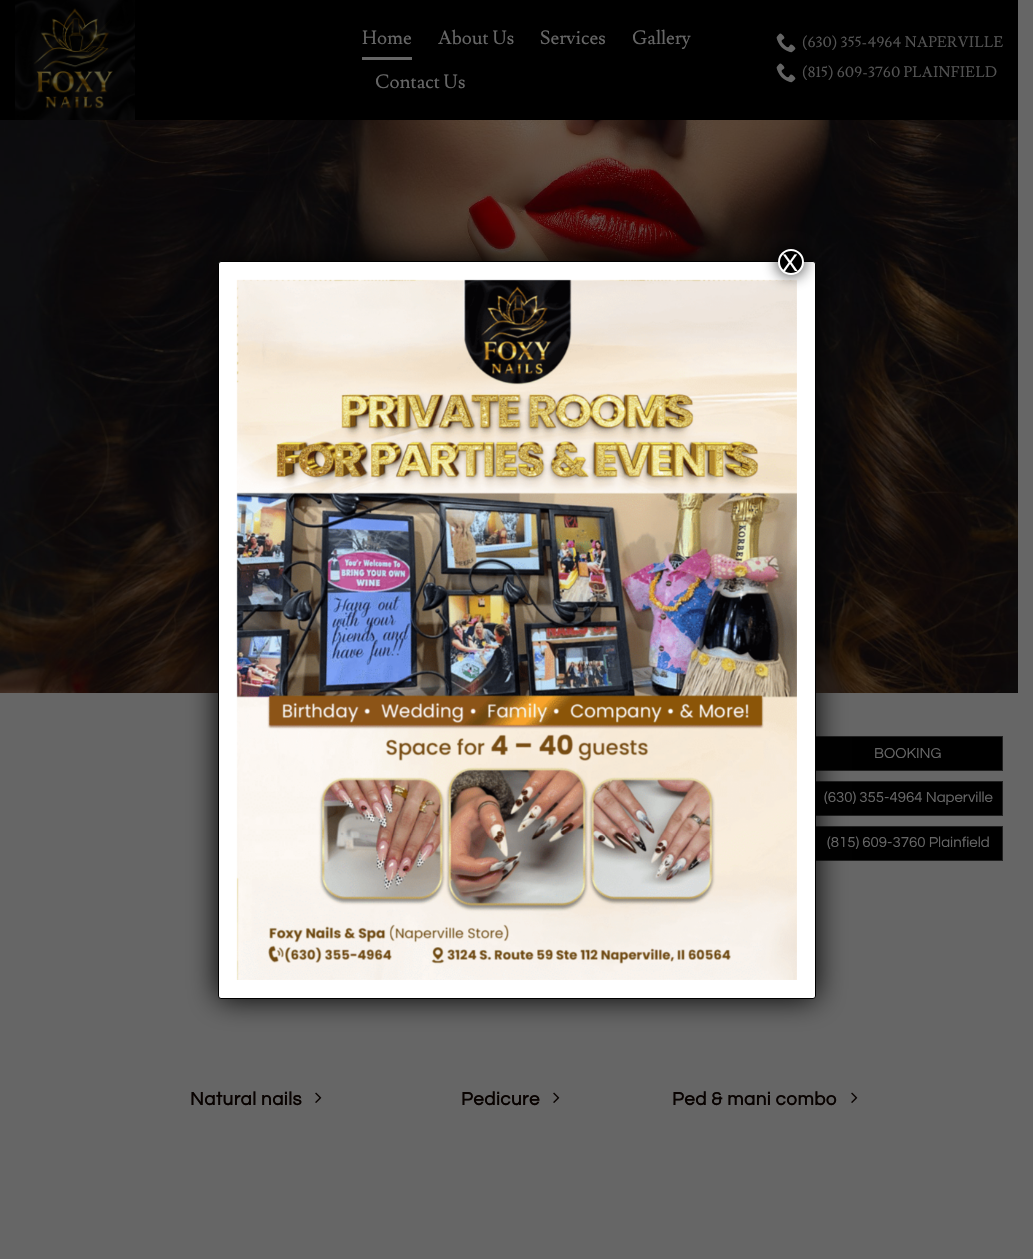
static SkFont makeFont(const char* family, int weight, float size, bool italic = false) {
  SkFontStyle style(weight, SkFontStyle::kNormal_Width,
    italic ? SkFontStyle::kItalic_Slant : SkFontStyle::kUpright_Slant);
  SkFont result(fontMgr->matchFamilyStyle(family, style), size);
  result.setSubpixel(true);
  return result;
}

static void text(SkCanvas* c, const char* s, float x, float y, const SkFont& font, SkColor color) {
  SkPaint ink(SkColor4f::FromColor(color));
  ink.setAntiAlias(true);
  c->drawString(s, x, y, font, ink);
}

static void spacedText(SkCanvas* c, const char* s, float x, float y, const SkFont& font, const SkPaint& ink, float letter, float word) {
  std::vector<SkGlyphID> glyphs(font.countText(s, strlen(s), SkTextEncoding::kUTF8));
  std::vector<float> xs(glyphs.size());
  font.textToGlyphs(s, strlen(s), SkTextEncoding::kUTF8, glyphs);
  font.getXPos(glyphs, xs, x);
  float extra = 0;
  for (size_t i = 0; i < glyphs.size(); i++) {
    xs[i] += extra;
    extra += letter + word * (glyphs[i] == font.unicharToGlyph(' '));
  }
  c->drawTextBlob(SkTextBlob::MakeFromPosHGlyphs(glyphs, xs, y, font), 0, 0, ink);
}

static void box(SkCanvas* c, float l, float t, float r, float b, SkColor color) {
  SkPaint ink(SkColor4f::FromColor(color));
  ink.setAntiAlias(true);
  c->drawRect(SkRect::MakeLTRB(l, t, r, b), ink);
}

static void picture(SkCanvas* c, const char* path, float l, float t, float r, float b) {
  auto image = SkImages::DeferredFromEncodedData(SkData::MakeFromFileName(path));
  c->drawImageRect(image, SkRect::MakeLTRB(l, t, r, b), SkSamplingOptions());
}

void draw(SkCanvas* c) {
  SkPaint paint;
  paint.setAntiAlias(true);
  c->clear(0xff666666);
  box(c, 0, 0, 1018, 120, 0xff000000);
  picture(c, "img_01.png", 15, 0, 135, 120);
  SkFont face1 = makeFont("Lusitana", 400, 19);
  text(c, "Home", 362, 44, face1, 0xff666666);
  box(c, 362, 57, 412, 60, 0xff666666);
  text(c, "About Us", 438, 44, face1, 0xff666666);
  text(c, "Services", 540, 44, face1, 0xff666666);
  text(c, "Gallery", 632, 44, face1, 0xff666666);
  text(c, "Contact Us", 375, 88, face1, 0xff666666);
  picture(c, "img_02.png", 776, 33, 796, 53);
  SkFont face2 = makeFont("Lusitana", 400, 15);
  paint.setColor(0xff525252);
  spacedText(c, "(630) 355-4964 NAPERVILLE", 802, 47, face2, paint, 0.3f, 0);
  picture(c, "img_02.png", 776, 63, 796, 83);
  spacedText(c, "(815) 609-3760 PLAINFIELD", 802, 77, face2, paint, 0.3f, 0);
  picture(c, "img_03.png", 0, 120, 1018, 693);
  SkFont face3 = makeFont("Questrial", 700, 18.75f);
  paint.setColor(0xff080200);
  spacedText(c, "Natural nails", 190, 1105, face3, paint, 0.5f, 0);
  picture(c, "img_04.png", 315, 1092, 322, 1103);
  spacedText(c, "Pedicure", 461, 1105, face3, paint, 0.5f, 0);
  picture(c, "img_04.png", 553, 1092, 560, 1103);
  spacedText(c, "Ped & mani combo", 672, 1105, face3, paint, 0.5f, 0);
  picture(c, "img_04.png", 851, 1092, 858, 1103);
  box(c, 816, 737, 1002, 770, 0xff000000);
  paint.setStyle(SkPaint::kStroke_Style);
  paint.setStrokeWidth(1);
  paint.setColor(0xff202020);
  c->drawRect(SkRect::MakeLTRB(813.5f, 736.5f, 1002.5f, 770.5f), paint);
  box(c, 816, 782, 1002, 815, 0xff000000);
  c->drawRect(SkRect::MakeLTRB(813.5f, 781.5f, 1002.5f, 815.5f), paint);
  box(c, 816, 827, 1002, 860, 0xff000000);
  c->drawRect(SkRect::MakeLTRB(813.5f, 826.5f, 1002.5f, 860.5f), paint);
  paint.setStyle(SkPaint::kFill_Style);
  paint.setColor(0xff020202);
  paint.setMaskFilter(SkMaskFilter::MakeBlur(kNormal_SkBlurStyle, 15));
  c->drawRoundRect(SkRect::MakeLTRB(218, 261, 816, 999), 3, 3, paint);
  paint.setMaskFilter(nullptr);
  paint.setColor(0xffffffff);
  c->drawRoundRect(SkRect::MakeLTRB(218.5f, 261.5f, 815.5f, 998.5f), 2.5f, 2.5f, paint);
  paint.setStyle(SkPaint::kStroke_Style);
  paint.setColor(0xff000000);
  c->drawRoundRect(SkRect::MakeLTRB(218.5f, 261.5f, 815.5f, 998.5f), 2.5f, 2.5f, paint);
  picture(c, "img_05.png", 236, 279, 797, 980);
  paint.setStyle(SkPaint::kFill_Style);
  paint.setColor(0xbf020202);
  paint.setMaskFilter(SkMaskFilter::MakeBlur(kNormal_SkBlurStyle, 7.5f));
  c->drawRoundRect(SkRect::MakeLTRB(777, 248, 805, 276), 14, 14, paint);
  paint.setMaskFilter(nullptr);
  paint.setColor(0xff000000);
  c->drawCircle(791, 262, 12, paint);
  paint.setStyle(SkPaint::kStroke_Style);
  paint.setStrokeWidth(2);
  paint.setColor(0xffffffff);
  c->drawCircle(791, 262, 12, paint);
  SkFont face4 = makeFont("Liberation Sans", 400, 24);
  text(c, "X", 782, 271, face4, 0xffffffff);
  SkFont face5 = makeFont("Questrial", 400, 15);
  text(c, "BOOKING", 874, 758, face5, 0xff666666);
  text(c, "(630) 355-4964 Naperville", 824, 802, face5, 0xff666666);
  text(c, "(815) 609-3760 Plainfield", 827, 847, face5, 0xff666666);
}
